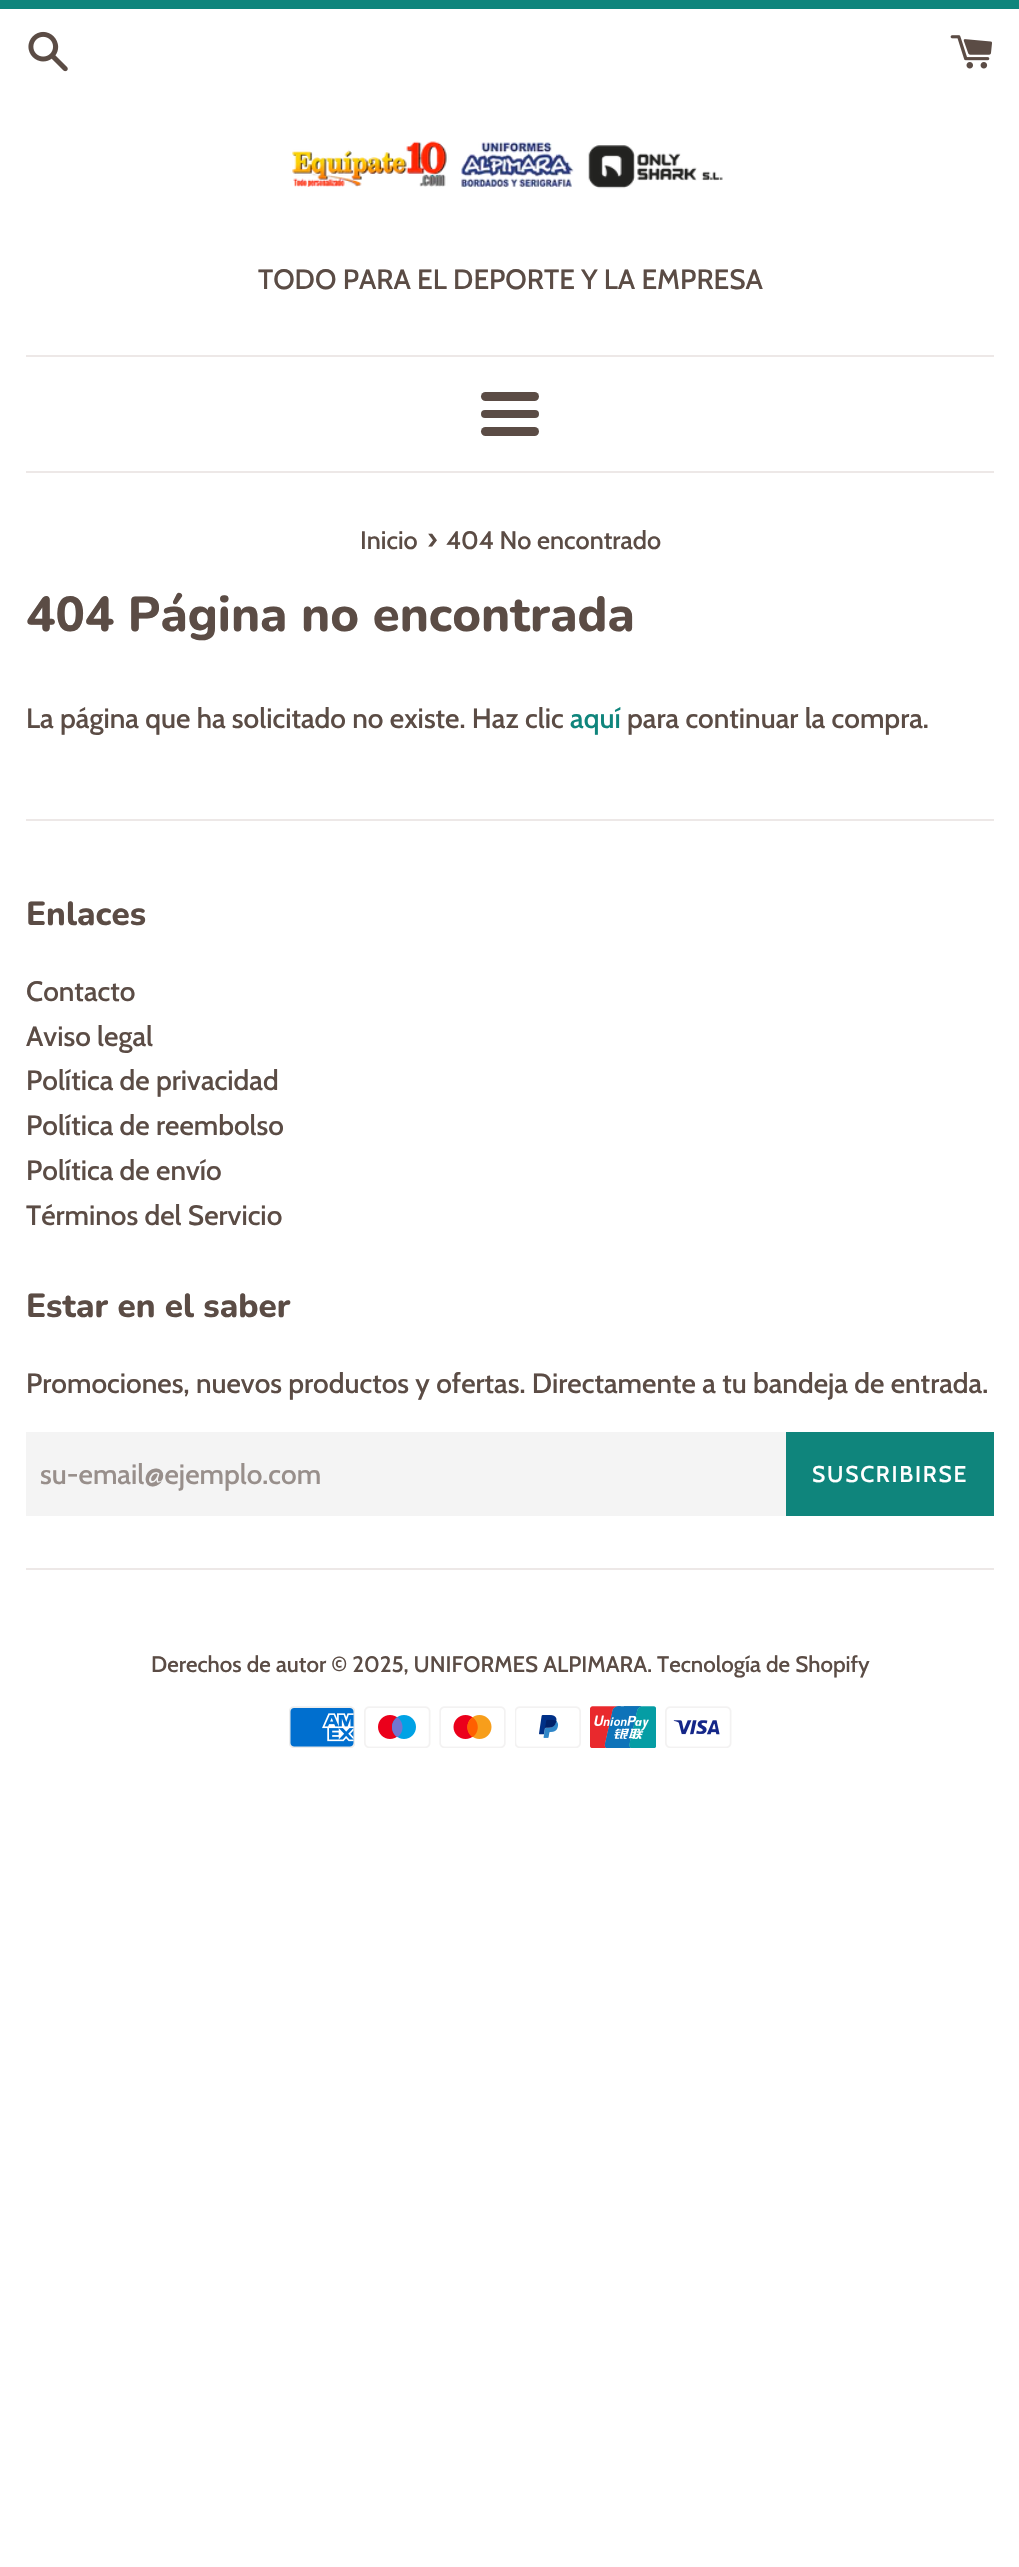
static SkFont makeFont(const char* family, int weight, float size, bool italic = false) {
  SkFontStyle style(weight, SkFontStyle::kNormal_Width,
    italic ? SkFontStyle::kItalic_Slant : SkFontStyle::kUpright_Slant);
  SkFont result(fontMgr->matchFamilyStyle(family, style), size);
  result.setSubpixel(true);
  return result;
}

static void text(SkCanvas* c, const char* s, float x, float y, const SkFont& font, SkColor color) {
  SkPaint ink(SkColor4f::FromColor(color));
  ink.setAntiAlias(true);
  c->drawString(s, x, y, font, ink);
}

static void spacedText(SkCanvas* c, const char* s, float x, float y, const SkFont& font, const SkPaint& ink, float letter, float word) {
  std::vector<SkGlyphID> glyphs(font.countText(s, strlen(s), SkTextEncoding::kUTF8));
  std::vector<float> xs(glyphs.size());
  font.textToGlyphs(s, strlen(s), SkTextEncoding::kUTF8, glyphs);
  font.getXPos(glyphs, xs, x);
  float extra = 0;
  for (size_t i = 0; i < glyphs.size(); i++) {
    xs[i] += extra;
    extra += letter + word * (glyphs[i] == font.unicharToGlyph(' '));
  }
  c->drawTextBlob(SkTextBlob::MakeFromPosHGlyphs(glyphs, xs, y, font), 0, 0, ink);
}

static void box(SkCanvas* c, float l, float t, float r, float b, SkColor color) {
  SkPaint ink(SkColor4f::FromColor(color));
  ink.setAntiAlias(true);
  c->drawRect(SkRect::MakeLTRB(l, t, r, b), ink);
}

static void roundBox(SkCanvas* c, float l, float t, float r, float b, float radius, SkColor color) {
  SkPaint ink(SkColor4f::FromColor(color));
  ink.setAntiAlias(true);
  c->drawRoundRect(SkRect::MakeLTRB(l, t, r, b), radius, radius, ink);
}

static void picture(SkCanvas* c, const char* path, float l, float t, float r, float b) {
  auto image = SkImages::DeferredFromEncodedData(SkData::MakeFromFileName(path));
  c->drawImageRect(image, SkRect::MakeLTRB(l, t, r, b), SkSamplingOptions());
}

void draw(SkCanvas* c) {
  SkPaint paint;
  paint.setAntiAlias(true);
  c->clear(0xffffffff);
  box(c, 0, 0, 1019, 9, 0xff0f857c);
  picture(c, "img_01.png", 28, 31, 68, 72);
  picture(c, "img_02.png", 950, 35, 992, 69);
  picture(c, "img_03.png", 292, 141, 723, 189);
  SkFont face1 = makeFont("Cabin", 500, 28);
  text(c, "TODO PARA EL DEPORTE Y LA EMPRESA", 258, 289, face1, 0xff5b4c45);
  box(c, 26, 355, 994, 357, 0xffede8e7);
  roundBox(c, 481, 392, 539, 401, 4.5f, 0xff5b4c45);
  roundBox(c, 481, 410, 539, 418, 4, 0xff5b4c45);
  roundBox(c, 481, 427, 539, 436, 4.5f, 0xff5b4c45);
  box(c, 26, 471, 994, 473, 0xffede8e7);
  SkFont face2 = makeFont("Cabin", 500, 25.25f);
  text(c, "Inicio", 360, 549, face2, 0xff5b4c45);
  SkFont face3 = makeFont("Cabin", 500, 31);
  text(c, "›", 427, 549, face3, 0xff5b4c45);
  text(c, "404 No encontrado", 446, 549, face2, 0xff5b4c45);
  SkFont face4 = makeFont("Nunito", 800, 49);
  text(c, "404 Página no encontrada", 26, 631, face4, 0xff5b4c45);
  text(c, "La página que ha solicitado no existe. Haz clic", 26, 728, face1, 0xff5b4c45);
  text(c, "aquí", 570, 728, face1, 0xff0f857c);
  text(c, "para continuar la compra.", 627, 728, face1, 0xff5b4c45);
  box(c, 26, 819, 994, 821, 0xffede8e7);
  SkFont face5 = makeFont("Nunito", 800, 33.25f);
  text(c, "Enlaces", 26, 925, face5, 0xff5b4c45);
  text(c, "Contacto", 26, 1001, face1, 0xff5b4c45);
  text(c, "Aviso legal", 26, 1046, face1, 0xff5b4c45);
  text(c, "Política de privacidad", 26, 1090, face1, 0xff5b4c45);
  text(c, "Política de reembolso", 26, 1135, face1, 0xff5b4c45);
  text(c, "Política de envío", 26, 1180, face1, 0xff5b4c45);
  text(c, "Términos del Servicio", 26, 1225, face1, 0xff5b4c45);
  text(c, "Estar en el saber", 26, 1317, face5, 0xff5b4c45);
  text(c, "Promociones, nuevos productos y ofertas. Directamente a tu bandeja de entrada.", 26, 1393, face1, 0xff5b4c45);
  box(c, 26, 1432, 786, 1516, 0xfff4f4f4);
  text(c, "su-email@ejemplo.com", 40, 1484, face1, 0xff988f8b);
  box(c, 786, 1432, 994, 1516, 0xff0f857c);
  SkFont face6 = makeFont("Cabin", 500, 22.75f);
  paint.setColor(0xffffffff);
  spacedText(c, "SUSCRIBIRSE", 812, 1482, face6, paint, 1.75f, 0);
  box(c, 26, 1568, 994, 1570, 0xffede8e7);
  SkFont face7 = makeFont("Cabin", 500, 22.4f);
  text(c, "Derechos de autor © 2025, UNIFORMES ALPIMARA. Tecnología de Shopify", 151, 1672, face7, 0xff5b4c45);
  picture(c, "img_04.png", 289, 1706, 355, 1748);
  picture(c, "img_05.png", 364, 1706, 431, 1748);
  picture(c, "img_06.png", 439, 1706, 506, 1748);
  picture(c, "img_07.png", 515, 1706, 581, 1748);
  picture(c, "img_08.png", 590, 1706, 656, 1748);
  picture(c, "img_09.png", 665, 1706, 732, 1748);
}
